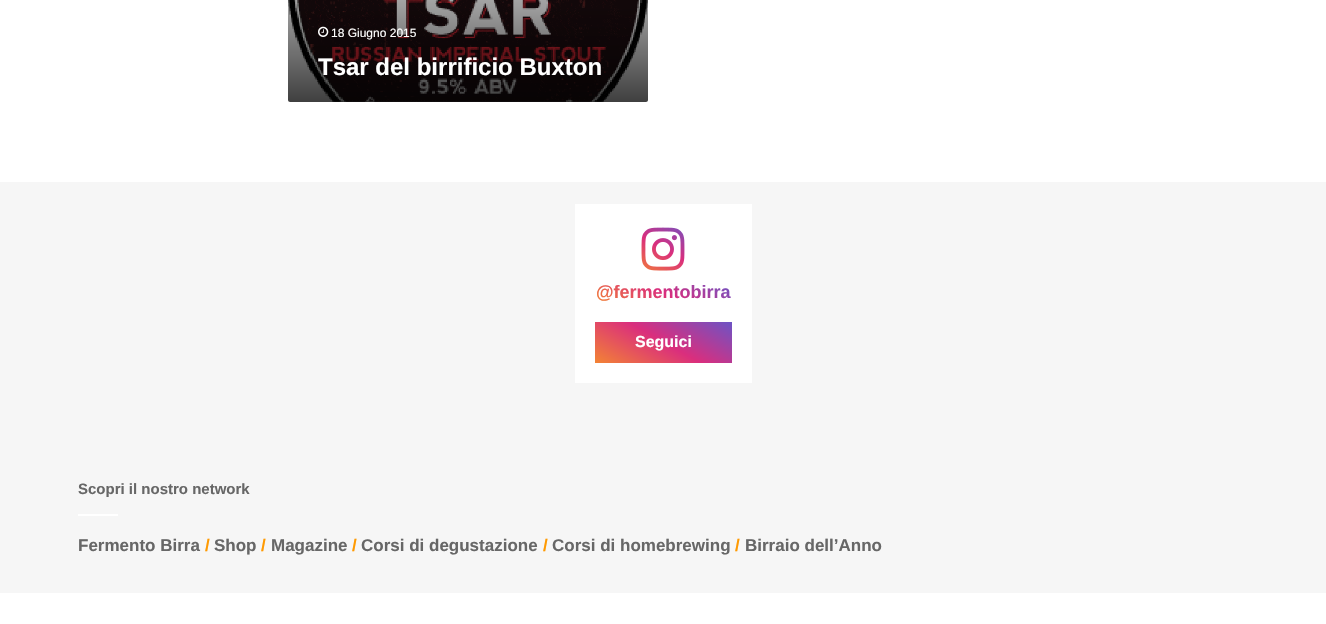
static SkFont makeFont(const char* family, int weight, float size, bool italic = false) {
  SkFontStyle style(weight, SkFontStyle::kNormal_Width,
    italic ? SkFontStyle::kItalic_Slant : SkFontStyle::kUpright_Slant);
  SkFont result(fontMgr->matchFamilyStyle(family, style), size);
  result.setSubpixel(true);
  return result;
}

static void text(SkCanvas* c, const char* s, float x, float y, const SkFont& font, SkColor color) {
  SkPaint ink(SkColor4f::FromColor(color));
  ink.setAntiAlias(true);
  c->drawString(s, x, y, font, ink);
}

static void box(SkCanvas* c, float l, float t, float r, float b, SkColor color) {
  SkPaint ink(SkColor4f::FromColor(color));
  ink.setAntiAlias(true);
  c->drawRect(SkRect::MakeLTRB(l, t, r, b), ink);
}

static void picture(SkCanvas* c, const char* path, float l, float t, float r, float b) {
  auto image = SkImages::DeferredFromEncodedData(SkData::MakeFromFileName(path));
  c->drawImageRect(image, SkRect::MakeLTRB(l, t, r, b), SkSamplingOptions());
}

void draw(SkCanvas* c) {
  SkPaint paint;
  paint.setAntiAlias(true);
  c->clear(0xffffffff);
  picture(c, "img_01.png", 288, 0, 648, 102);
  {
    const SkColor colors[] = {0x00000000, 0xbf000000};
    const float stops[] = {0, 1};
    const SkPoint ends[] = {{468, -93}, {468, 102}};
    paint.setShader(SkGradientShader::MakeLinear(ends, colors, stops, 2, SkTileMode::kClamp));
    paint.setAlpha(255);
  }
  c->drawPath(SkPathBuilder().moveTo(288, -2).lineTo(648, -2).lineTo(648, 100).cubicTo(648, 101, 647, 102, 646, 102).lineTo(290, 102).cubicTo(289, 102, 288, 101, 288, 100).close().detach(), paint);
  picture(c, "img_02.png", 318, 26, 329, 37);
  SkFont face1 = makeFont("Liberation Sans", 400, 12);
  text(c, "18 Giugno 2015", 331, 37, face1, 0xffffffff);
  SkFont face2 = makeFont("Liberation Sans", 700, 24);
  text(c, "Tsar del birrificio Buxton", 318, 75, face2, 0xffffffff);
  box(c, 0, 182, 1326, 593, 0xfff6f6f6);
  box(c, 575, 204, 752, 383, 0xffffffff);
  picture(c, "img_03.png", 641, 227, 685, 271);
  SkFont face3 = makeFont("Liberation Sans", 700, 18);
  {
    const SkColor colors[] = {0xfff38334, 0xffda2e7d, 0xff6b54c6};
    const float stops[] = {0, 0.5f, 1};
    const SkPoint ends[] = {{642, 329}, {684, 256}};
    paint.setShader(SkGradientShader::MakeLinear(ends, colors, stops, 3, SkTileMode::kClamp));
    paint.setAlpha(255);
  }
  c->drawString("@fermentobirra", 596, 298, face3, paint);
  {
    const SkColor colors[] = {0xfff38334, 0xffda2e7d, 0xff6b54c6};
    const float stops[] = {0, 0.5f, 1};
    const SkPoint ends[] = {{638, 387}, {689, 297}};
    paint.setShader(SkGradientShader::MakeLinear(ends, colors, stops, 3, SkTileMode::kClamp));
    paint.setAlpha(255);
  }
  c->drawRect(SkRect::MakeLTRB(595, 322, 732, 363), paint);
  SkFont face4 = makeFont("Liberation Sans", 700, 16);
  text(c, "Seguici", 635, 347, face4, 0xffffffff);
  SkFont face5 = makeFont("Liberation Sans", 700, 15);
  text(c, "Scopri il nostro network", 78, 494, face5, 0xff676767);
  box(c, 78, 514, 118, 516, 0xffffffff);
  SkFont face6 = makeFont("Liberation Sans", 700, 17);
  text(c, "Fermento Birra", 78, 551, face6, 0xff676767);
  text(c, "/", 205, 551, face6, 0xffff9a02);
  text(c, "Shop", 214, 551, face6, 0xff676767);
  text(c, "/", 261, 551, face6, 0xffff9a02);
  text(c, "Magazine", 271, 551, face6, 0xff676767);
  text(c, "/", 352, 551, face6, 0xffff9a02);
  text(c, "Corsi di degustazione", 361, 551, face6, 0xff676767);
  text(c, "/", 543, 551, face6, 0xffff9a02);
  text(c, "Corsi di homebrewing", 552, 551, face6, 0xff676767);
  text(c, "/", 735, 551, face6, 0xffff9a02);
  text(c, "Birraio dell’Anno", 745, 551, face6, 0xff676767);
}
